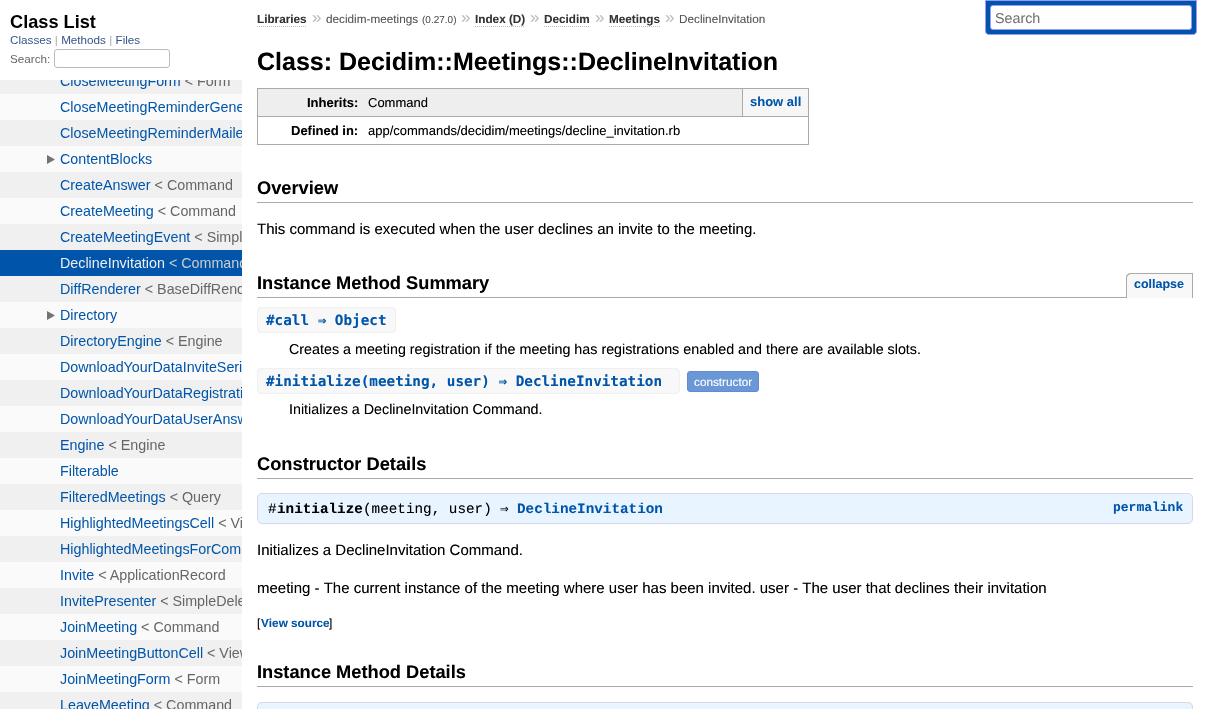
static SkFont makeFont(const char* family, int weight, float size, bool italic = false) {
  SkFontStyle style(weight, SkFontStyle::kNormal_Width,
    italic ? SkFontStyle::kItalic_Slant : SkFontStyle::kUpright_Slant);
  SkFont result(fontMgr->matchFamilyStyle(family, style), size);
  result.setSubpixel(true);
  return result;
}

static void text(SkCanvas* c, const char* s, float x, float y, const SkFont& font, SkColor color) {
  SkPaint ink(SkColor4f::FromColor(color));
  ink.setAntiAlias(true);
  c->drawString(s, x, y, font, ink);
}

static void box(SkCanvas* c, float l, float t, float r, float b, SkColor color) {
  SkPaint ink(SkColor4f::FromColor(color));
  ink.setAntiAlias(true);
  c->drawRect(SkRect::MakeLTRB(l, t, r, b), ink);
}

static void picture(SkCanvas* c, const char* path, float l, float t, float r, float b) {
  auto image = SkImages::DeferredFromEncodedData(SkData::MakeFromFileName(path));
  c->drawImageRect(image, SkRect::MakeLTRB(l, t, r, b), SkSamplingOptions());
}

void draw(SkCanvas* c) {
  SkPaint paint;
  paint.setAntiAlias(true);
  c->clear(0xffffffff);
  picture(c, "img_01.png", 0, 15, 242, 709);
  SkFont face1 = makeFont("Liberation Sans", 700, 11.75f);
  text(c, "Libraries", 257, 23, face1, 0xff333333);
  paint.setStyle(SkPaint::kStroke_Style);
  paint.setStrokeWidth(1);
  paint.setColor(0xffbbbbdd);
  paint.setPathEffect(SkDashPathEffect::Make({{1, 1}}, 0));
  c->drawPath(SkPathBuilder().moveTo(257, 26.5f).lineTo(307, 26.5f).detach(), paint);
  paint.setPathEffect(nullptr);
  SkFont face2 = makeFont("Liberation Sans", 400, 17);
  text(c, "»", 312, 23, face2, 0xffbbbbbb);
  SkFont face3 = makeFont("Liberation Sans", 400, 11.75f);
  text(c, "decidim-meetings", 326, 23, face3, 0xff555555);
  SkFont face4 = makeFont("Liberation Sans", 400, 10);
  text(c, "(0.27.0)", 422, 23, face4, 0xff555555);
  text(c, "»", 461, 23, face2, 0xffbbbbbb);
  text(c, "Index (D)", 475, 23, face1, 0xff333333);
  paint.setPathEffect(SkDashPathEffect::Make({{1, 1}}, 0));
  c->drawPath(SkPathBuilder().moveTo(475, 26.5f).lineTo(525, 26.5f).detach(), paint);
  paint.setPathEffect(nullptr);
  text(c, "»", 530, 23, face2, 0xffbbbbbb);
  text(c, "Decidim", 544, 23, face1, 0xff333333);
  paint.setPathEffect(SkDashPathEffect::Make({{1, 1}}, 0));
  c->drawPath(SkPathBuilder().moveTo(544, 26.5f).lineTo(590, 26.5f).detach(), paint);
  paint.setPathEffect(nullptr);
  text(c, "»", 595, 23, face2, 0xffbbbbbb);
  text(c, "Meetings", 609, 23, face1, 0xff333333);
  paint.setPathEffect(SkDashPathEffect::Make({{1, 1}}, 0));
  c->drawPath(SkPathBuilder().moveTo(609, 26.5f).lineTo(660, 26.5f).detach(), paint);
  paint.setPathEffect(nullptr);
  text(c, "»", 665, 23, face2, 0xffbbbbbb);
  text(c, "DeclineInvitation", 679, 23, face3, 0xff555555);
  paint.setStyle(SkPaint::kFill_Style);
  paint.setColor(0xff0055aa);
  c->drawPath(SkPathBuilder().moveTo(985.5f, 0.5f).lineTo(1196.5f, 0.5f).lineTo(1196.5f, 31).cubicTo(1196.5f, 33, 1195, 34.5f, 1193, 34.5f).lineTo(989, 34.5f).cubicTo(987, 34.5f, 985.5f, 33, 985.5f, 31).close().detach(), paint);
  paint.setStyle(SkPaint::kStroke_Style);
  paint.setColor(0xff9999ff);
  c->drawPath(SkPathBuilder().moveTo(985.5f, 0.5f).lineTo(1196.5f, 0.5f).lineTo(1196.5f, 31).cubicTo(1196.5f, 33, 1195, 34.5f, 1193, 34.5f).lineTo(989, 34.5f).cubicTo(987, 34.5f, 985.5f, 33, 985.5f, 31).close().detach(), paint);
  paint.setStyle(SkPaint::kFill_Style);
  paint.setColor(0xffffffff);
  c->drawRoundRect(SkRect::MakeLTRB(990.5f, 5.5f, 1191.5f, 29.5f), 2.5f, 2.5f, paint);
  paint.setStyle(SkPaint::kStroke_Style);
  paint.setColor(0xff9999ff);
  c->drawRoundRect(SkRect::MakeLTRB(990.5f, 5.5f, 1191.5f, 29.5f), 2.5f, 2.5f, paint);
  SkFont face5 = makeFont("Liberation Sans", 400, 14.3f);
  text(c, "Search", 995, 23, face5, 0xff757575);
  SkFont face6 = makeFont("Liberation Sans", 700, 25);
  text(c, "Class: Decidim::Meetings::DeclineInvitation", 257, 70, face6, 0xff000000);
  box(c, 258, 89, 742, 116, 0xffeeeeee);
  box(c, 257, 88, 809, 89, 0xffaaaaaa);
  box(c, 257, 88, 258, 116, 0xffaaaaaa);
  SkFont face7 = makeFont("Liberation Sans", 700, 13);
  text(c, "Inherits:", 307, 107, face7, 0xff000000);
  box(c, 257, 116, 809, 117, 0xffaaaaaa);
  box(c, 808, 88, 809, 145, 0xffaaaaaa);
  SkFont face8 = makeFont("Liberation Sans", 400, 13);
  text(c, "Command", 368, 107, face8, 0xff000000);
  box(c, 743, 89, 808, 116, 0xfff6f6f6);
  box(c, 742, 89, 743, 116, 0xffaaaaaa);
  text(c, "show all", 750, 106, face7, 0xff0055aa);
  box(c, 257, 144, 368, 145, 0xffaaaaaa);
  box(c, 257, 116, 258, 145, 0xffaaaaaa);
  text(c, "Defined in:", 291, 135, face7, 0xff000000);
  box(c, 368, 144, 809, 145, 0xffaaaaaa);
  text(c, "app/commands/decidim/meetings/decline_invitation.rb", 368, 135, face8, 0xff000000);
  box(c, 257, 202, 1193, 203, 0xffaaaaaa);
  SkFont face9 = makeFont("Liberation Sans", 700, 18.25f);
  text(c, "Overview", 257, 194, face9, 0xff000000);
  SkFont face10 = makeFont("Liberation Sans", 400, 15);
  text(c, "This command is executed when the user declines an invite to the meeting.", 257, 234, face10, 0xff000000);
  box(c, 257, 297, 1126, 298, 0xffaaaaaa);
  text(c, "Instance Method Summary", 257, 289, face9, 0xff000000);
  paint.setStyle(SkPaint::kFill_Style);
  paint.setColor(0xfff8f8f8);
  c->drawPath(SkPathBuilder().moveTo(1131, 273).lineTo(1193, 273).lineTo(1193, 298).lineTo(1126, 298).lineTo(1126, 278).cubicTo(1126, 275, 1128, 273, 1131, 273).close().detach(), paint);
  paint.setColor(0xffaaaaaa);
  c->drawPath(SkPathBuilder(SkPathFillType::kEvenOdd).moveTo(1131, 273).lineTo(1193, 273).lineTo(1193, 298).lineTo(1126, 298).lineTo(1126, 278).cubicTo(1126, 275, 1128, 273, 1131, 273).close().moveTo(1131, 274).lineTo(1192, 274).lineTo(1192, 298).lineTo(1127, 298).lineTo(1127, 278).cubicTo(1127, 276, 1129, 274, 1131, 274).close().detach(), paint);
  SkFont face11 = makeFont("Liberation Sans", 700, 12.5f);
  text(c, "collapse", 1134, 288, face11, 0xff0055aa);
  paint.setColor(0xfff8f8f8);
  c->drawPath(SkPathBuilder().moveTo(262, 307).lineTo(275, 307).lineTo(275, 333).lineTo(262, 333).cubicTo(259, 333, 257, 331, 257, 328).lineTo(257, 312).cubicTo(257, 309, 259, 307, 262, 307).close().detach(), paint);
  paint.setColor(0xfff0f0f0);
  c->drawPath(SkPathBuilder(SkPathFillType::kEvenOdd).moveTo(262, 307).lineTo(275, 307).lineTo(275, 333).lineTo(262, 333).cubicTo(259, 333, 257, 331, 257, 328).lineTo(257, 312).cubicTo(257, 309, 259, 307, 262, 307).close().moveTo(262, 308).lineTo(275, 308).lineTo(275, 332).lineTo(262, 332).cubicTo(260, 332, 258, 330, 258, 328).lineTo(258, 312).cubicTo(258, 310, 260, 308, 262, 308).close().detach(), paint);
  box(c, 275, 308, 309, 332, 0xfff8f8f8);
  paint.setColor(0xfff8f8f8);
  c->drawPath(SkPathBuilder().moveTo(309, 307).lineTo(391, 307).cubicTo(394, 307, 396, 309, 396, 312).lineTo(396, 328).cubicTo(396, 331, 394, 333, 391, 333).lineTo(309, 333).close().detach(), paint);
  paint.setColor(0xfff0f0f0);
  c->drawPath(SkPathBuilder(SkPathFillType::kEvenOdd).moveTo(309, 307).lineTo(391, 307).cubicTo(394, 307, 396, 309, 396, 312).lineTo(396, 328).cubicTo(396, 331, 394, 333, 391, 333).lineTo(309, 333).close().moveTo(309, 308).lineTo(391, 308).cubicTo(393, 308, 395, 310, 395, 312).lineTo(395, 328).cubicTo(395, 330, 393, 332, 391, 332).lineTo(309, 332).close().detach(), paint);
  SkFont face12 = makeFont("DejaVu Sans Mono", 700, 14.3f);
  text(c, "#call ⇒ Object", 266, 325, face12, 0xff0055aa);
  box(c, 275, 307, 309, 308, 0xfff0f0f0);
  box(c, 275, 332, 309, 333, 0xfff0f0f0);
  text(c, "Creates a meeting registration if the meeting has registrations enabled and there are available slots.", 289, 354, face5, 0xff000000);
  paint.setColor(0xfff8f8f8);
  c->drawPath(SkPathBuilder().moveTo(262, 368).lineTo(275, 368).lineTo(275, 394).lineTo(262, 394).cubicTo(259, 394, 257, 392, 257, 389).lineTo(257, 373).cubicTo(257, 370, 259, 368, 262, 368).close().detach(), paint);
  paint.setColor(0xfff0f0f0);
  c->drawPath(SkPathBuilder(SkPathFillType::kEvenOdd).moveTo(262, 368).lineTo(275, 368).lineTo(275, 394).lineTo(262, 394).cubicTo(259, 394, 257, 392, 257, 389).lineTo(257, 373).cubicTo(257, 370, 259, 368, 262, 368).close().moveTo(262, 369).lineTo(275, 369).lineTo(275, 393).lineTo(262, 393).cubicTo(260, 393, 258, 391, 258, 389).lineTo(258, 373).cubicTo(258, 371, 260, 369, 262, 369).close().detach(), paint);
  box(c, 275, 369, 361, 393, 0xfff8f8f8);
  paint.setColor(0xfff8f8f8);
  c->drawPath(SkPathBuilder().moveTo(361, 368).lineTo(675, 368).cubicTo(678, 368, 680, 370, 680, 373).lineTo(680, 389).cubicTo(680, 392, 678, 394, 675, 394).lineTo(361, 394).close().detach(), paint);
  paint.setColor(0xfff0f0f0);
  c->drawPath(SkPathBuilder(SkPathFillType::kEvenOdd).moveTo(361, 368).lineTo(675, 368).cubicTo(678, 368, 680, 370, 680, 373).lineTo(680, 389).cubicTo(680, 392, 678, 394, 675, 394).lineTo(361, 394).close().moveTo(361, 369).lineTo(675, 369).cubicTo(677, 369, 679, 371, 679, 373).lineTo(679, 389).cubicTo(679, 391, 677, 393, 675, 393).lineTo(361, 393).close().detach(), paint);
  text(c, "#initialize(meeting, user) ⇒ DeclineInvitation", 266, 386, face12, 0xff0055aa);
  box(c, 275, 368, 361, 369, 0xfff0f0f0);
  box(c, 275, 393, 361, 394, 0xfff0f0f0);
  paint.setColor(0xff6a98d6);
  c->drawRoundRect(SkRect::MakeLTRB(687.5f, 371.5f, 758.5f, 391.5f), 2.5f, 2.5f, paint);
  paint.setStyle(SkPaint::kStroke_Style);
  paint.setColor(0xff6689d6);
  c->drawRoundRect(SkRect::MakeLTRB(687.5f, 371.5f, 758.5f, 391.5f), 2.5f, 2.5f, paint);
  text(c, "constructor", 694, 386, face3, 0xffffffff);
  text(c, "Initializes a DeclineInvitation Command.", 289, 414, face5, 0xff000000);
  box(c, 257, 478, 1193, 479, 0xffaaaaaa);
  text(c, "Constructor Details", 257, 470, face9, 0xff000000);
  paint.setStyle(SkPaint::kFill_Style);
  paint.setColor(0xffe8f4ff);
  c->drawRoundRect(SkRect::MakeLTRB(257.5f, 493.5f, 1192.5f, 523.5f), 4.5f, 4.5f, paint);
  paint.setStyle(SkPaint::kStroke_Style);
  paint.setColor(0xffd8d8e5);
  c->drawRoundRect(SkRect::MakeLTRB(257.5f, 493.5f, 1192.5f, 523.5f), 4.5f, 4.5f, paint);
  SkFont face13 = makeFont("Liberation Mono", 400, 14.3f);
  text(c, "#", 268, 513, face13, 0xff000000);
  SkFont face14 = makeFont("Liberation Mono", 700, 14.3f);
  text(c, "initialize", 277, 513, face14, 0xff000000);
  text(c, "(meeting, user)", 363, 513, face13, 0xff000000);
  SkFont face15 = makeFont("DejaVu Sans Mono", 400, 14.3f);
  text(c, "⇒", 500, 513, face15, 0xff000000);
  text(c, "DeclineInvitation", 517, 513, face14, 0xff0055aa);
  SkFont face16 = makeFont("Liberation Mono", 700, 13);
  text(c, "permalink", 1113, 511, face16, 0xff0055aa);
  text(c, "Initializes a DeclineInvitation Command.", 257, 555, face10, 0xff000000);
  text(c, "meeting - The current instance of the meeting where user has been invited. user - The user that declines their invitation", 257, 593, face10, 0xff000000);
  text(c, "[", 257, 627, face3, 0xff000000);
  text(c, "View source", 261, 627, face1, 0xff0055aa);
  text(c, "]", 329, 627, face3, 0xff000000);
  box(c, 257, 686, 1193, 687, 0xffaaaaaa);
  text(c, "Instance Method Details", 257, 678, face9, 0xff000000);
  paint.setStyle(SkPaint::kFill_Style);
  paint.setColor(0xffe8f4ff);
  c->drawPath(SkPathBuilder().moveTo(262, 702).lineTo(1188, 702).cubicTo(1191, 702, 1193, 704, 1193, 707).lineTo(1193, 709).lineTo(257, 709).lineTo(257, 707).cubicTo(257, 704, 259, 702, 262, 702).close().detach(), paint);
  paint.setStyle(SkPaint::kStroke_Style);
  paint.setColor(0xffd8d8e5);
  c->drawRoundRect(SkRect::MakeLTRB(257.5f, 702.5f, 1192.5f, 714.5f), 4.5f, 4.5f, paint);
}
